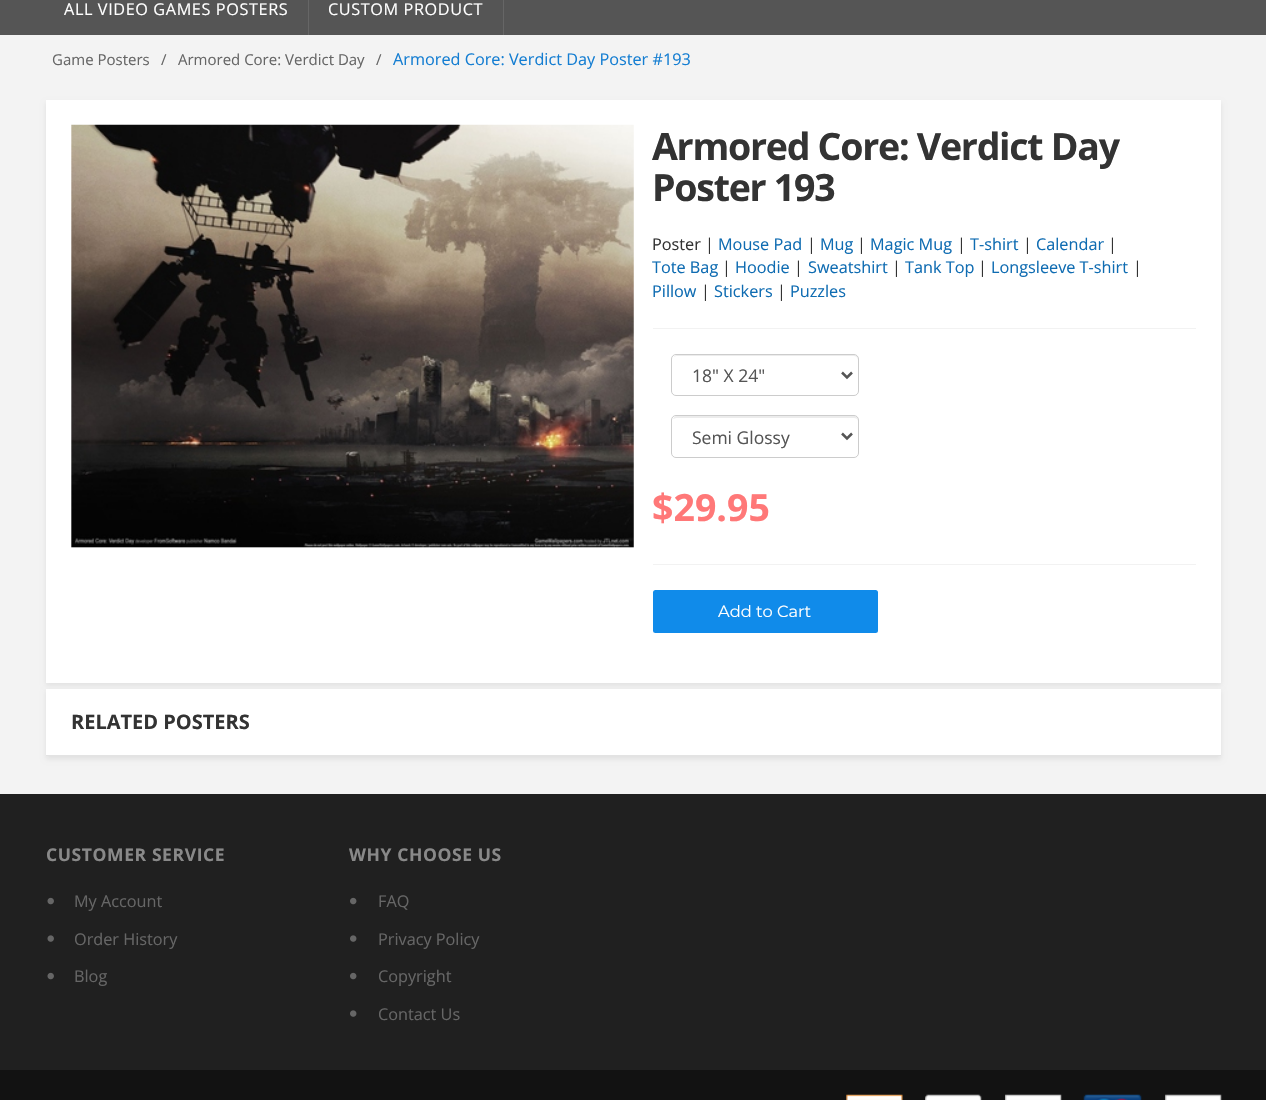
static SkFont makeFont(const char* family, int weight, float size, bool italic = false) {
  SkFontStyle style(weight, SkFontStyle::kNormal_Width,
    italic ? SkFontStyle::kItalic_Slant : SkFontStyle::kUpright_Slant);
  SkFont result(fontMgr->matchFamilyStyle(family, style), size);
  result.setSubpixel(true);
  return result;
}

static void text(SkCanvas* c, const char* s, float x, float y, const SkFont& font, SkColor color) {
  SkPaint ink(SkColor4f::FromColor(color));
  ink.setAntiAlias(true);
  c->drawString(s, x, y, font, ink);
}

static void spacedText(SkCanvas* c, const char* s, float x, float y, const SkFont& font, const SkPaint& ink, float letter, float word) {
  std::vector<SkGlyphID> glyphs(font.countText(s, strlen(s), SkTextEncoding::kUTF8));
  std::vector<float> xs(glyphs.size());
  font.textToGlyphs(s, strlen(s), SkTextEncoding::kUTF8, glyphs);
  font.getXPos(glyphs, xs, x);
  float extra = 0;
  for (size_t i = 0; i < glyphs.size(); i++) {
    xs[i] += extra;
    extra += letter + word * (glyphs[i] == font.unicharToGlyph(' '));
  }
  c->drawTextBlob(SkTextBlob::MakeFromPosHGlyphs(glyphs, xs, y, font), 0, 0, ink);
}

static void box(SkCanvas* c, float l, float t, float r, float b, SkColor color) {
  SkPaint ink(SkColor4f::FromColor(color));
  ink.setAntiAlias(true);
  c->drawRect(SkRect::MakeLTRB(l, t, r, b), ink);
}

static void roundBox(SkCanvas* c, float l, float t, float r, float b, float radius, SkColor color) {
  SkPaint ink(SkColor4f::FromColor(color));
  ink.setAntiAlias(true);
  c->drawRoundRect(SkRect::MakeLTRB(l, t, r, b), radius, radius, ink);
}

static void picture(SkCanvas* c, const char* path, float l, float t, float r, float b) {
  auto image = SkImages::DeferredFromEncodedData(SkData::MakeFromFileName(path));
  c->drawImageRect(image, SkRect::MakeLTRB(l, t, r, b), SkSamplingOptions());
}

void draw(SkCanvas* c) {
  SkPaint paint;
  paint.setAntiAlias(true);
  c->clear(0xfff3f3f3);
  box(c, 0, 0, 1266, 35, 0xff555555);
  box(c, 308, 0, 309, 35, 0xff666666);
  SkFont face1 = makeFont("Open Sans", 400, 16.25f);
  paint.setColor(0xffffffff);
  spacedText(c, "ALL VIDEO GAMES POSTERS", 64, 15, face1, paint, 0.6f, 0);
  box(c, 503, 0, 504, 35, 0xff666666);
  spacedText(c, "CUSTOM PRODUCT", 328, 15, face1, paint, 0.6f, 0);
  SkFont face2 = makeFont("Open Sans", 400, 15);
  text(c, "Game Posters", 52, 65, face2, 0xff666666);
  text(c, "/", 161, 65, face2, 0xff666666);
  text(c, "Armored Core: Verdict Day", 178, 65, face2, 0xff666666);
  text(c, "/", 376, 65, face2, 0xff666666);
  text(c, "Armored Core: Verdict Day Poster #193", 393, 65, face1, 0xff157ed2);
  paint.setColor(0x14000000);
  paint.setMaskFilter(SkMaskFilter::MakeBlur(kNormal_SkBlurStyle, 2.5f));
  c->drawRect(SkRect::MakeLTRB(46, 103, 1221, 685), paint);
  paint.setMaskFilter(nullptr);
  box(c, 46, 100, 1221, 683, 0xffffffff);
  picture(c, "img_01.png", 71, 124, 634, 548);
  SkFont face3 = makeFont("Open Sans", 700, 37.5f);
  paint.setColor(0xff333333);
  spacedText(c, "Armored Core: Verdict Day", 652, 160, face3, paint, -1.25f, 0);
  spacedText(c, "Poster 193", 652, 201, face3, paint, -1.25f, 0);
  text(c, "Poster |", 652, 250, face1, 0xff333333);
  text(c, "Mouse Pad", 718, 250, face1, 0xff0f6cb2);
  text(c, "|", 807, 250, face1, 0xff333333);
  text(c, "Mug", 820, 250, face1, 0xff0f6cb2);
  text(c, "|", 857, 250, face1, 0xff333333);
  text(c, "Magic Mug", 870, 250, face1, 0xff0f6cb2);
  text(c, "|", 957, 250, face1, 0xff333333);
  text(c, "T-shirt", 970, 250, face1, 0xff0f6cb2);
  text(c, "|", 1023, 250, face1, 0xff333333);
  text(c, "Calendar", 1036, 250, face1, 0xff0f6cb2);
  text(c, "|", 1108, 250, face1, 0xff333333);
  text(c, "Tote Bag", 652, 273, face1, 0xff0f6cb2);
  text(c, "|", 722, 273, face1, 0xff333333);
  text(c, "Hoodie", 735, 273, face1, 0xff0f6cb2);
  text(c, "|", 794, 273, face1, 0xff333333);
  text(c, "Sweatshirt", 808, 273, face1, 0xff0f6cb2);
  text(c, "|", 892, 273, face1, 0xff333333);
  text(c, "Tank Top", 905, 273, face1, 0xff0f6cb2);
  text(c, "|", 978, 273, face1, 0xff333333);
  text(c, "Longsleeve T-shirt", 991, 273, face1, 0xff0f6cb2);
  text(c, "|", 1133, 273, face1, 0xff333333);
  text(c, "Pillow", 652, 297, face1, 0xff0f6cb2);
  text(c, "|", 701, 297, face1, 0xff333333);
  text(c, "Stickers", 714, 297, face1, 0xff0f6cb2);
  text(c, "|", 777, 297, face1, 0xff333333);
  text(c, "Puzzles", 790, 297, face1, 0xff0f6cb2);
  box(c, 653, 328, 1196, 329, 0xfff2f2f2);
  box(c, 653, 564, 1196, 565, 0xfff2f2f2);
  paint.setColor(0xffececec);
  c->drawPath(SkPathBuilder().moveTo(676, 356).lineTo(854, 356).cubicTo(856, 356, 858, 358, 858, 360).lineTo(858, 359).cubicTo(858, 357, 856, 355, 854, 355).lineTo(677, 355).cubicTo(676, 355, 674, 356, 674, 357).close().detach(), paint);
  paint.setStyle(SkPaint::kStroke_Style);
  paint.setStrokeWidth(1);
  paint.setColor(0xffcccccc);
  c->drawRoundRect(SkRect::MakeLTRB(671.5f, 354.5f, 858.5f, 395.5f), 4.5f, 4.5f, paint);
  paint.setStrokeWidth(2.5f);
  paint.setColor(0xff555555);
  c->drawPath(SkPathBuilder().moveTo(842, 372.5f).lineTo(847, 377.5f).lineTo(852, 372.5f).detach(), paint);
  SkFont face4 = makeFont("Open Sans", 400, 17.5f);
  text(c, "18\" X 24\"", 692, 382, face4, 0xff555555);
  paint.setStyle(SkPaint::kFill_Style);
  paint.setColor(0xffececec);
  c->drawPath(SkPathBuilder().moveTo(676, 418).lineTo(854, 418).cubicTo(856, 418, 858, 419, 858, 421).lineTo(858, 420).cubicTo(858, 418, 856, 416, 854, 416).lineTo(677, 416).cubicTo(675, 416, 674, 417, 673, 419).close().detach(), paint);
  paint.setStyle(SkPaint::kStroke_Style);
  paint.setStrokeWidth(1);
  paint.setColor(0xffcccccc);
  c->drawRoundRect(SkRect::MakeLTRB(671.5f, 415.5f, 858.5f, 457.5f), 4.5f, 4.5f, paint);
  paint.setStrokeWidth(2.5f);
  paint.setColor(0xff555555);
  c->drawPath(SkPathBuilder().moveTo(842, 433.5f).lineTo(847, 438.5f).lineTo(852, 433.5f).detach(), paint);
  text(c, "Semi Glossy", 692, 444, face4, 0xff555555);
  text(c, "$29.95", 652, 521, face3, 0xffff7878);
  roundBox(c, 653, 590, 878, 633, 2.5f, 0xff108bea);
  SkFont face5 = makeFont("Montserrat", 400, 16.25f);
  text(c, "Add to Cart", 718, 617, face5, 0xffffffff);
  paint.setStyle(SkPaint::kFill_Style);
  paint.setColor(0x14000000);
  paint.setMaskFilter(SkMaskFilter::MakeBlur(kNormal_SkBlurStyle, 2.5f));
  c->drawRect(SkRect::MakeLTRB(46, 691, 1221, 759), paint);
  paint.setMaskFilter(nullptr);
  box(c, 46, 689, 1221, 755, 0xffffffff);
  box(c, 46, 755, 1221, 756, 0xffe3e3e3);
  SkFont face6 = makeFont("Open Sans", 700, 20);
  text(c, "RELATED POSTERS", 71, 729, face6, 0xff333333);
  box(c, 0, 794, 1266, 1070, 0xff202020);
  SkFont face7 = makeFont("Open Sans", 700, 17.5f);
  paint.setColor(0xff898989);
  spacedText(c, "CUSTOMER SERVICE", 46, 861, face7, paint, 0.6f, 0);
  picture(c, "img_02.png", 47, 897, 54, 905);
  text(c, "My Account", 74, 907, face1, 0xff666666);
  picture(c, "img_03.png", 47, 935, 54, 942);
  text(c, "Order History", 74, 945, face1, 0xff666666);
  picture(c, "img_02.png", 47, 972, 54, 980);
  text(c, "Blog", 74, 982, face1, 0xff666666);
  spacedText(c, "WHY CHOOSE US", 349, 861, face7, paint, 0.6f, 0);
  picture(c, "img_04.png", 350, 897, 357, 905);
  text(c, "FAQ", 378, 907, face1, 0xff666666);
  picture(c, "img_05.png", 350, 935, 357, 942);
  text(c, "Privacy Policy", 378, 945, face1, 0xff666666);
  picture(c, "img_04.png", 350, 972, 357, 980);
  text(c, "Copyright", 378, 982, face1, 0xff666666);
  picture(c, "img_05.png", 350, 1010, 357, 1017);
  text(c, "Contact Us", 378, 1020, face1, 0xff666666);
  box(c, 0, 1070, 1266, 1100, 0xff121212);
  picture(c, "img_06.png", 846, 1094, 903, 1100);
  picture(c, "img_07.png", 925, 1094, 982, 1100);
  picture(c, "img_08.png", 1005, 1094, 1062, 1100);
  picture(c, "img_09.png", 1083, 1094, 1142, 1100);
  picture(c, "img_10.png", 1165, 1094, 1222, 1100);
}
